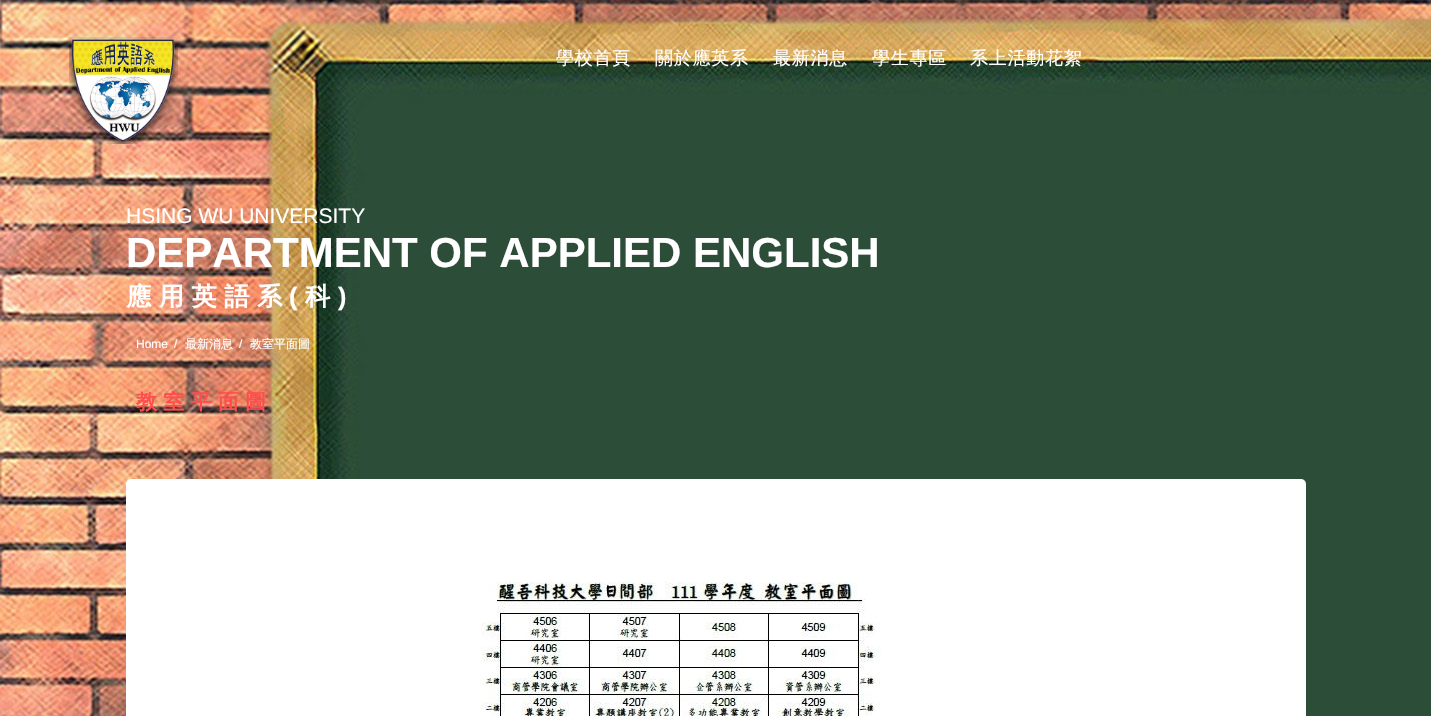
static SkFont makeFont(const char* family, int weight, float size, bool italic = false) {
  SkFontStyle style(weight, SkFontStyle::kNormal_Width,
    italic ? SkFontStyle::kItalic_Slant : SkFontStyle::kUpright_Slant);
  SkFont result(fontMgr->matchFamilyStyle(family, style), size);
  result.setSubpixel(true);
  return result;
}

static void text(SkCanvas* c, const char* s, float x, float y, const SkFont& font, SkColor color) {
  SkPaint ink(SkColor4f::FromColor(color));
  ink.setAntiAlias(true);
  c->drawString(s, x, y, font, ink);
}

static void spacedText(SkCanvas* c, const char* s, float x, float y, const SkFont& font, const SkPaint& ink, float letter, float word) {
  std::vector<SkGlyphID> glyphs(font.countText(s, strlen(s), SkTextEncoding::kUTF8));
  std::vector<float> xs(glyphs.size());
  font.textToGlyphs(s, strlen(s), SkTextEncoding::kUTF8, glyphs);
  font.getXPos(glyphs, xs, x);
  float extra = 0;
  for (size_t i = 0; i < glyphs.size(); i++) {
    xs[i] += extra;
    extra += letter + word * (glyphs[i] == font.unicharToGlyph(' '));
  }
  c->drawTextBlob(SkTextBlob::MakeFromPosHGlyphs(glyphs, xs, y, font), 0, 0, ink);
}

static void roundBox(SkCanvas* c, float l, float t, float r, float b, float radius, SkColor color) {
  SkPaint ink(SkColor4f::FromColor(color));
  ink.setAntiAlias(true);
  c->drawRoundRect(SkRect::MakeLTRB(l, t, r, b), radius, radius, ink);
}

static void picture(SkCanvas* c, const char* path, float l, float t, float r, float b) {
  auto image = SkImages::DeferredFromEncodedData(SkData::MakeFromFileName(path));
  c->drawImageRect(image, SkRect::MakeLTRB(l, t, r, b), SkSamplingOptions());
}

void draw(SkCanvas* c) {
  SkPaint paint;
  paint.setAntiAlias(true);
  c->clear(0xffffffff);
  picture(c, "img_01.png", 0, 0, 1431, 716);
  picture(c, "img_02.png", 69, 37, 178, 144);
  SkFont face1 = makeFont("WenQuanYi Zen Hei", 500, 18);
  paint.setColor(0xffffffff);
  spacedText(c, "學校首頁", 556, 64, face1, paint, 0.75f, 0);
  spacedText(c, "關於應英系", 655, 64, face1, paint, 0.75f, 0);
  spacedText(c, "最新消息", 773, 64, face1, paint, 0.75f, 0);
  spacedText(c, "學生專區", 872, 64, face1, paint, 0.75f, 0);
  spacedText(c, "系上活動花絮", 970, 64, face1, paint, 0.75f, 0);
  SkFont face2 = makeFont("Liberation Sans", 400, 21);
  text(c, "HSING WU UNIVERSITY", 126, 223, face2, 0xffffffff);
  SkFont face3 = makeFont("Liberation Sans", 700, 42);
  text(c, "DEPARTMENT OF APPLIED ENGLISH", 126, 267, face3, 0xffffffff);
  SkFont face4 = makeFont("WenQuanYi Zen Hei", 700, 25.25f);
  spacedText(c, "應用英語系", 126, 305, face4, paint, 7.5f, 0);
  SkFont face5 = makeFont("Liberation Sans", 700, 25.25f);
  spacedText(c, "(", 289, 305, face5, paint, 7.5f, 0);
  spacedText(c, "科", 305, 305, face4, paint, 7.5f, 0);
  spacedText(c, ")", 338, 305, face5, paint, 7.5f, 0);
  SkFont face6 = makeFont("Liberation Sans", 400, 12);
  text(c, "Home", 136, 348, face6, 0xffffffff);
  text(c, "/", 174, 348, face6, 0xffffffff);
  SkFont face7 = makeFont("WenQuanYi Zen Hei", 500, 12);
  text(c, "最新消息", 185, 348, face7, 0xffffffff);
  text(c, "/", 239, 348, face6, 0xffffffff);
  text(c, "教室平面圖", 250, 348, face7, 0xffffffff);
  SkFont face8 = makeFont("WenQuanYi Zen Hei", 700, 21);
  paint.setColor(0xffff4d4d);
  spacedText(c, "教室平面圖", 136, 409, face8, paint, 6.25f, 0);
  roundBox(c, 126, 479, 1306, 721, 5, 0xffffffff);
  picture(c, "img_03.png", 481, 582, 881, 716);
}
